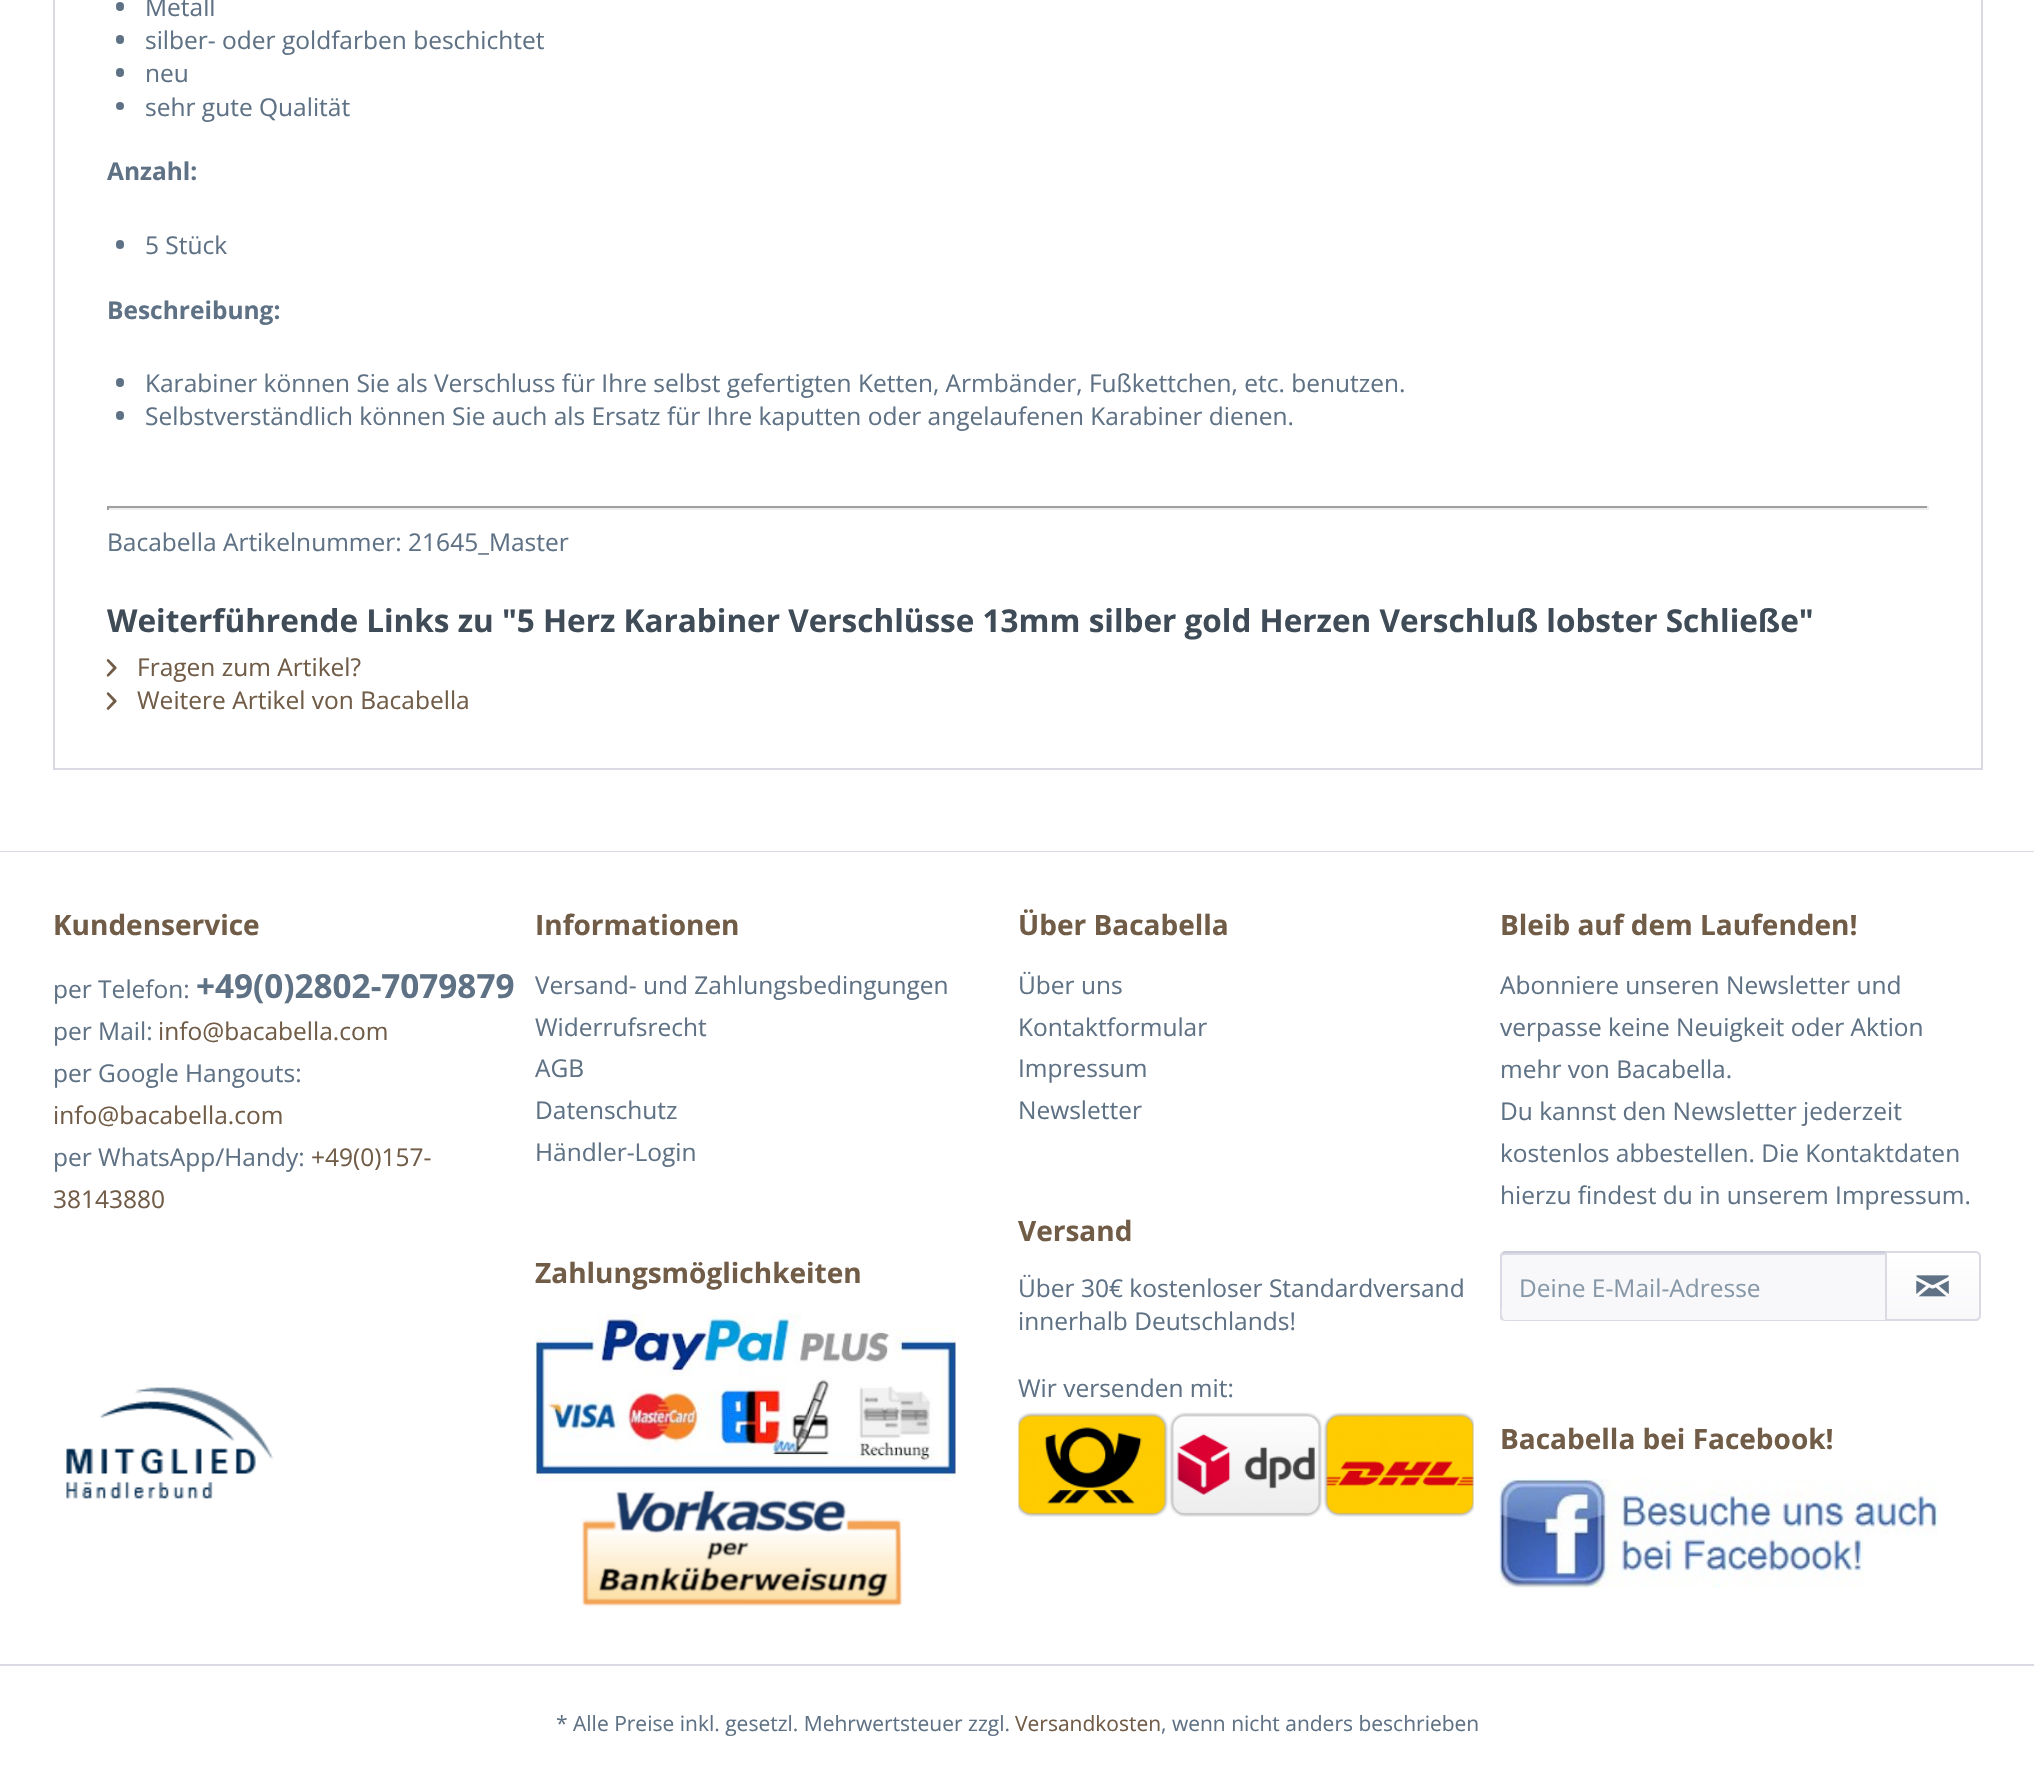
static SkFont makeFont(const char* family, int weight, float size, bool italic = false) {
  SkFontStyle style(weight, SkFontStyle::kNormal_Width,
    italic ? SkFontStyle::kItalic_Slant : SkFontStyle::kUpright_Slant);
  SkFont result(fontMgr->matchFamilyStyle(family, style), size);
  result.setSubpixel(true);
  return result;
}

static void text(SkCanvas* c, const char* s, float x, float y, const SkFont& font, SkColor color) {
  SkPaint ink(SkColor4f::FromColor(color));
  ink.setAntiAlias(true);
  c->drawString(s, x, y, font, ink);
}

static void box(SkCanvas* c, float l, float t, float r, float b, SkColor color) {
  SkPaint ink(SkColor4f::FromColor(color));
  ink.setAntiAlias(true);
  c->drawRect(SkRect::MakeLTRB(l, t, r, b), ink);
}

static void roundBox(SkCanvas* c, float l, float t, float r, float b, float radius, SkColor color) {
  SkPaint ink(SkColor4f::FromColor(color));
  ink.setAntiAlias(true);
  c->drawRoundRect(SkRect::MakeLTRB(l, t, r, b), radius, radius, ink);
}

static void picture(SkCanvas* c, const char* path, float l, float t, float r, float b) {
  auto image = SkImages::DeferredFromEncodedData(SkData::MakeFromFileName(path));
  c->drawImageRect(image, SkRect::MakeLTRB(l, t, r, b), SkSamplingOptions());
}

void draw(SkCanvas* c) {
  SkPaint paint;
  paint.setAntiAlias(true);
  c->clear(0xffffffff);
  paint.setStyle(SkPaint::kStroke_Style);
  paint.setStrokeWidth(2);
  paint.setColor(0xffdadae5);
  c->drawRect(SkRect::MakeLTRB(54, -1, 1982, 769), paint);
  roundBox(c, 116, 2, 124, 11, 4, 0xff5f7285);
  SkFont face1 = makeFont("Open Sans", 400, 24.5f);
  text(c, "Metall", 145, 16, face1, 0xff5f7285);
  roundBox(c, 116, 35, 124, 44, 4, 0xff5f7285);
  text(c, "silber- oder goldfarben beschichtet", 145, 49, face1, 0xff5f7285);
  roundBox(c, 116, 68, 124, 77, 4, 0xff5f7285);
  text(c, "neu", 145, 82, face1, 0xff5f7285);
  paint.setStyle(SkPaint::kFill_Style);
  paint.setColor(0xff5f7285);
  c->drawCircle(120, 106, 4, paint);
  text(c, "sehr gute Qualität", 145, 116, face1, 0xff5f7285);
  SkFont face2 = makeFont("Open Sans", 700, 24.5f);
  text(c, "Anzahl:", 107, 180, face2, 0xff5f7285);
  roundBox(c, 116, 240, 124, 249, 4, 0xff5f7285);
  text(c, "5 Stück", 145, 254, face1, 0xff5f7285);
  text(c, "Beschreibung:", 107, 319, face2, 0xff5f7285);
  roundBox(c, 116, 378, 124, 387, 4, 0xff5f7285);
  text(c, "Karabiner können Sie als Verschluss für Ihre selbst gefertigten Ketten, Armbänder, Fußkettchen, etc. benutzen.", 145, 392, face1, 0xff5f7285);
  roundBox(c, 116, 411, 124, 420, 4, 0xff5f7285);
  text(c, "Selbstverständlich können Sie auch als Ersatz für Ihre kaputten oder angelaufenen Karabiner dienen.", 145, 425, face1, 0xff5f7285);
  box(c, 107, 506, 1929, 508, 0xff9f9f9f);
  box(c, 1927, 506, 1929, 510, 0xffeeeeee);
  box(c, 107, 508, 1929, 510, 0xffeeeeee);
  box(c, 107, 506, 109, 510, 0xff9f9f9f);
  text(c, "Bacabella Artikelnummer: 21645_Master", 107, 551, face1, 0xff5f7285);
  SkFont face3 = makeFont("Open Sans", 700, 31.5f);
  text(c, "Weiterführende Links zu \"5 Herz Karabiner Verschlüsse 13mm silber gold Herzen Verschluß lobster Schließe\"", 107, 632, face3, 0xff3f4c58);
  picture(c, "img_01.png", 106, 659, 117, 677);
  text(c, "Fragen zum Artikel?", 137, 676, face1, 0xff715c47);
  picture(c, "img_02.png", 106, 692, 117, 710);
  text(c, "Weitere Artikel von Bacabella", 137, 709, face1, 0xff715c47);
  box(c, 0, 851, 2034, 852, 0xffdadae5);
  box(c, 0, 1664, 2034, 1666, 0xffdadae5);
  SkFont face4 = makeFont("Open Sans", 700, 28);
  text(c, "Kundenservice", 53, 935, face4, 0xff715c47);
  text(c, "per Telefon:", 53, 998, face1, 0xff5f7285);
  SkFont face5 = makeFont("Open Sans", 700, 33.25f);
  text(c, "+49(0)2802-7079879", 196, 998, face5, 0xff5f7285);
  text(c, "per Mail:", 53, 1040, face1, 0xff5f7285);
  text(c, "info@bacabella.com", 158, 1040, face1, 0xff715c47);
  text(c, "per Google Hangouts:", 53, 1082, face1, 0xff5f7285);
  text(c, "info@bacabella.com", 53, 1124, face1, 0xff715c47);
  text(c, "per WhatsApp/Handy:", 53, 1166, face1, 0xff5f7285);
  text(c, "+49(0)157-", 311, 1166, face1, 0xff715c47);
  text(c, "38143880", 53, 1208, face1, 0xff715c47);
  picture(c, "img_03.png", 66, 1387, 274, 1499);
  text(c, "Informationen", 535, 935, face4, 0xff715c47);
  text(c, "Versand- und Zahlungsbedingungen", 535, 994, face1, 0xff5f7285);
  text(c, "Widerrufsrecht", 535, 1036, face1, 0xff5f7285);
  text(c, "AGB", 535, 1077, face1, 0xff5f7285);
  text(c, "Datenschutz", 535, 1119, face1, 0xff5f7285);
  text(c, "Händler-Login", 535, 1161, face1, 0xff5f7285);
  text(c, "Zahlungsmöglichkeiten", 535, 1283, face4, 0xff715c47);
  picture(c, "img_04.png", 535, 1313, 956, 1607);
  text(c, "Über Bacabella", 1018, 935, face4, 0xff715c47);
  text(c, "Über uns", 1018, 994, face1, 0xff5f7285);
  text(c, "Kontaktformular", 1018, 1036, face1, 0xff5f7285);
  text(c, "Impressum", 1018, 1077, face1, 0xff5f7285);
  text(c, "Newsletter", 1018, 1119, face1, 0xff5f7285);
  text(c, "Versand", 1018, 1241, face4, 0xff715c47);
  text(c, "Über 30€ kostenloser Standardversand", 1018, 1297, face1, 0xff5f7285);
  text(c, "innerhalb Deutschlands!", 1018, 1330, face1, 0xff5f7285);
  text(c, "Wir versenden mit:", 1018, 1397, face1, 0xff5f7285);
  picture(c, "img_05.png", 1018, 1412, 1474, 1517);
  text(c, "Bleib auf dem Laufenden!", 1500, 935, face4, 0xff715c47);
  text(c, "Abonniere unseren Newsletter und", 1500, 994, face1, 0xff5f7285);
  text(c, "verpasse keine Neuigkeit oder Aktion", 1500, 1036, face1, 0xff5f7285);
  text(c, "mehr von Bacabella.", 1500, 1078, face1, 0xff5f7285);
  text(c, "Du kannst den Newsletter jederzeit", 1500, 1120, face1, 0xff5f7285);
  text(c, "kostenlos abbestellen. Die Kontaktdaten", 1500, 1162, face1, 0xff5f7285);
  text(c, "hierzu findest du in unserem Impressum.", 1500, 1204, face1, 0xff5f7285);
  paint.setColor(0xfff8f8fa);
  c->drawPath(SkPathBuilder().moveTo(1506, 1253).lineTo(1885, 1253).lineTo(1885, 1320).lineTo(1506, 1320).cubicTo(1504, 1320, 1502, 1318, 1502, 1316).lineTo(1502, 1257).cubicTo(1502, 1255, 1504, 1253, 1506, 1253).close().detach(), paint);
  paint.setColor(0xffdadae5);
  c->drawPath(SkPathBuilder().moveTo(1505, 1255).lineTo(1885, 1255).lineTo(1885, 1253).lineTo(1506, 1253).cubicTo(1503, 1253, 1502, 1255, 1502, 1258).cubicTo(1502, 1256, 1503, 1255, 1505, 1255).close().detach(), paint);
  paint.setColor(0xffcbcbdb);
  c->drawPath(SkPathBuilder().moveTo(1505, 1253).lineTo(1503, 1254).lineTo(1501, 1253).lineTo(1504, 1251).lineTo(1886, 1251).lineTo(1885, 1253).close().detach(), paint);
  paint.setColor(0xffdadae5);
  c->drawPath(SkPathBuilder().moveTo(1886, 1321).lineTo(1505, 1321).cubicTo(1504, 1321, 1502, 1320, 1501, 1320).lineTo(1503, 1318).lineTo(1504, 1320).lineTo(1885, 1320).close().detach(), paint);
  c->drawPath(SkPathBuilder().moveTo(1501, 1320).cubicTo(1500, 1319, 1500, 1318, 1500, 1316).lineTo(1500, 1256).cubicTo(1500, 1255, 1500, 1254, 1501, 1253).lineTo(1503, 1254).lineTo(1502, 1256).lineTo(1502, 1306).cubicTo(1502, 1310, 1501, 1315, 1503, 1318).close().detach(), paint);
  text(c, "Deine E-Mail-Adresse", 1519, 1297, face1, 0xff8798a9);
  {
    const SkColor colors[] = {0xffffffff, 0xfff8f8fa};
    const float stops[] = {0, 1};
    const SkPoint ends[] = {{1933, 1253}, {1933, 1320}};
    paint.setShader(SkGradientShader::MakeLinear(ends, colors, stops, 2, SkTileMode::kClamp));
    paint.setAlpha(255);
  }
  c->drawPath(SkPathBuilder().moveTo(1887, 1253).lineTo(1975, 1253).cubicTo(1977, 1253, 1979, 1255, 1979, 1257).lineTo(1979, 1316).cubicTo(1979, 1318, 1977, 1320, 1975, 1320).lineTo(1887, 1320).close().detach(), paint);
  paint.setStyle(SkPaint::kStroke_Style);
  paint.setShader(nullptr);
  paint.setColor(0xffdadae5);
  c->drawPath(SkPathBuilder().moveTo(1886, 1252).lineTo(1976, 1252).cubicTo(1978, 1252, 1980, 1254, 1980, 1256).lineTo(1980, 1316).cubicTo(1980, 1318, 1978, 1320, 1976, 1320).lineTo(1886, 1320).close().detach(), paint);
  picture(c, "img_06.png", 1916, 1275, 1949, 1297);
  text(c, "Bacabella bei Facebook!", 1500, 1449, face4, 0xff715c47);
  picture(c, "img_07.png", 1499, 1478, 1938, 1588);
  SkFont face6 = makeFont("Open Sans", 400, 21);
  text(c, "* Alle Preise inkl. gesetzl. Mehrwertsteuer zzgl.", 556, 1731, face6, 0xff5f7285);
  text(c, "Versandkosten", 1015, 1731, face6, 0xff715c47);
  text(c, ", wenn nicht anders beschrieben", 1161, 1731, face6, 0xff5f7285);
}
